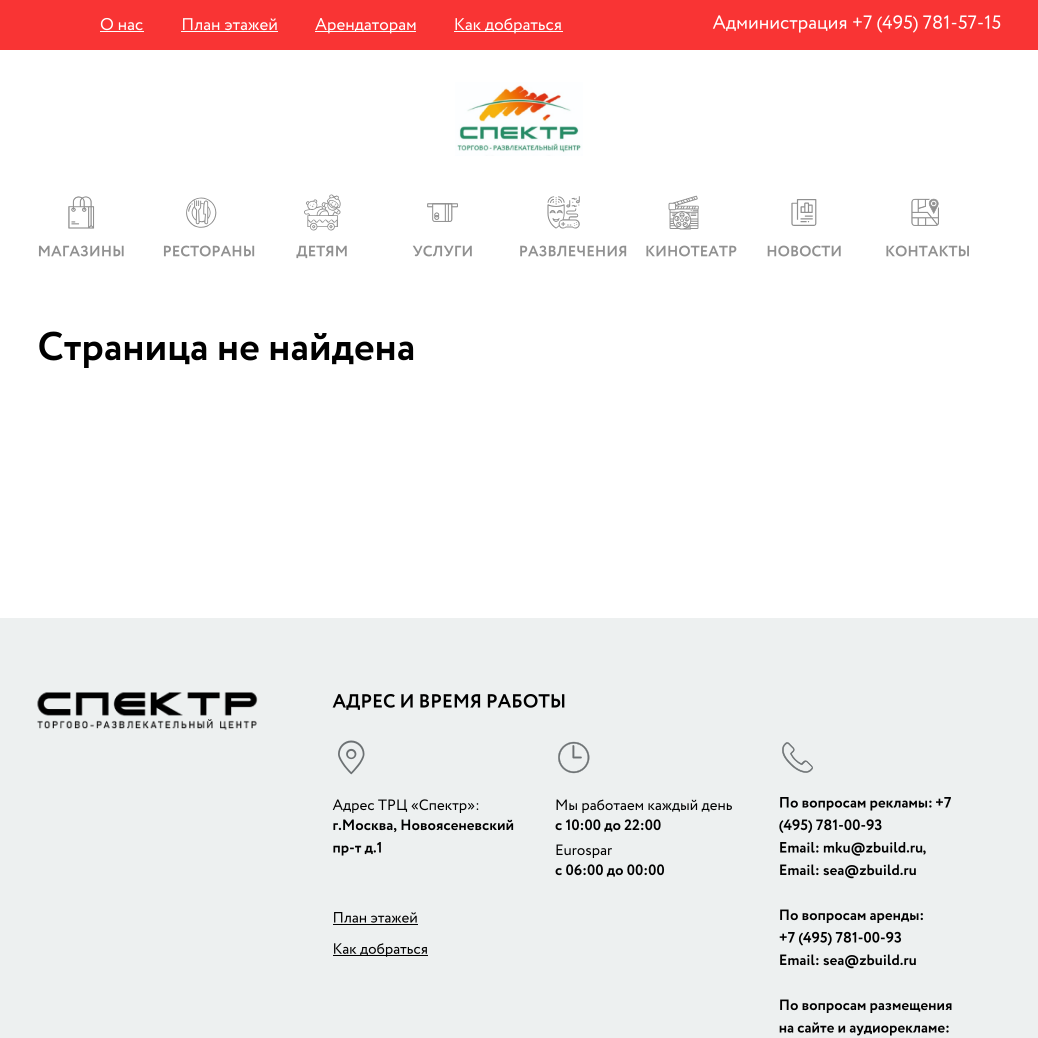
static void box(SkCanvas* c, float l, float t, float r, float b, SkColor color) {
  SkPaint ink(SkColor4f::FromColor(color));
  ink.setAntiAlias(true);
  c->drawRect(SkRect::MakeLTRB(l, t, r, b), ink);
}

static void picture(SkCanvas* c, const char* path, float l, float t, float r, float b) {
  auto image = SkImages::DeferredFromEncodedData(SkData::MakeFromFileName(path));
  c->drawImageRect(image, SkRect::MakeLTRB(l, t, r, b), SkSamplingOptions());
}

void draw(SkCanvas* c) {
  SkPaint paint;
  paint.setAntiAlias(true);
  c->clear(0xffffffff);
  box(c, 0, 0, 1038, 50, 0xfff93434);
  picture(c, "img_01.png", 100, 17, 143, 31);
  box(c, 100, 31, 144, 32, 0xffffffff);
  picture(c, "img_02.png", 183, 18, 277, 31);
  box(c, 181, 31, 278, 32, 0xffffffff);
  box(c, 315, 31, 416, 32, 0xffffffff);
  picture(c, "img_03.png", 315, 18, 416, 34);
  box(c, 454, 31, 563, 32, 0xffffffff);
  picture(c, "img_04.png", 455, 18, 561, 34);
  picture(c, "img_05.png", 712, 15, 1001, 33);
  picture(c, "img_06.png", 455, 82, 583, 156);
  picture(c, "img_07.png", 68, 196, 95, 229);
  picture(c, "img_08.png", 38, 245, 124, 257);
  picture(c, "img_09.png", 186, 197, 217, 228);
  picture(c, "img_10.png", 163, 245, 255, 257);
  picture(c, "img_11.png", 304, 194, 341, 231);
  picture(c, "img_12.png", 296, 245, 347, 259);
  picture(c, "img_13.png", 427, 203, 458, 222);
  picture(c, "img_14.png", 412, 245, 472, 257);
  picture(c, "img_15.png", 547, 196, 580, 229);
  picture(c, "img_16.png", 520, 245, 627, 257);
  picture(c, "img_17.png", 668, 195, 699, 230);
  picture(c, "img_18.png", 646, 245, 737, 257);
  picture(c, "img_19.png", 791, 199, 817, 226);
  picture(c, "img_20.png", 767, 245, 841, 257);
  picture(c, "img_21.png", 911, 198, 939, 226);
  picture(c, "img_22.png", 886, 245, 969, 257);
  picture(c, "img_23.png", 39, 331, 414, 368);
  box(c, 0, 618, 1038, 1038, 0xffedf0f0);
  picture(c, "img_24.png", 37, 692, 258, 730);
  picture(c, "img_25.png", 332, 694, 565, 710);
  picture(c, "img_26.png", 338, 740, 365, 775);
  picture(c, "img_27.png", 332, 799, 479, 813);
  picture(c, "img_28.png", 333, 819, 514, 833);
  picture(c, "img_29.png", 333, 842, 381, 856);
  picture(c, "img_30.png", 334, 912, 417, 923);
  box(c, 333, 924, 418, 925, 0xff000000);
  box(c, 333, 955, 428, 956, 0xff000000);
  picture(c, "img_31.png", 334, 943, 427, 957);
  picture(c, "img_32.png", 558, 741, 590, 774);
  picture(c, "img_33.png", 556, 799, 732, 813);
  picture(c, "img_34.png", 555, 819, 661, 832);
  picture(c, "img_35.png", 556, 844, 612, 858);
  picture(c, "img_36.png", 555, 864, 665, 877);
  picture(c, "img_37.png", 782, 742, 813, 773);
  picture(c, "img_38.png", 780, 797, 932, 811);
  picture(c, "img_39.png", 936, 797, 951, 808);
  picture(c, "img_40.png", 779, 819, 882, 833);
  picture(c, "img_41.png", 780, 842, 923, 856);
  picture(c, "img_42.png", 923, 850, 926, 855);
  picture(c, "img_43.png", 780, 864, 916, 879);
  picture(c, "img_44.png", 780, 909, 923, 923);
  picture(c, "img_45.png", 779, 931, 902, 946);
  picture(c, "img_43.png", 780, 954, 916, 969);
  picture(c, "img_46.png", 780, 999, 952, 1013);
  picture(c, "img_47.png", 779, 1022, 949, 1036);
}
